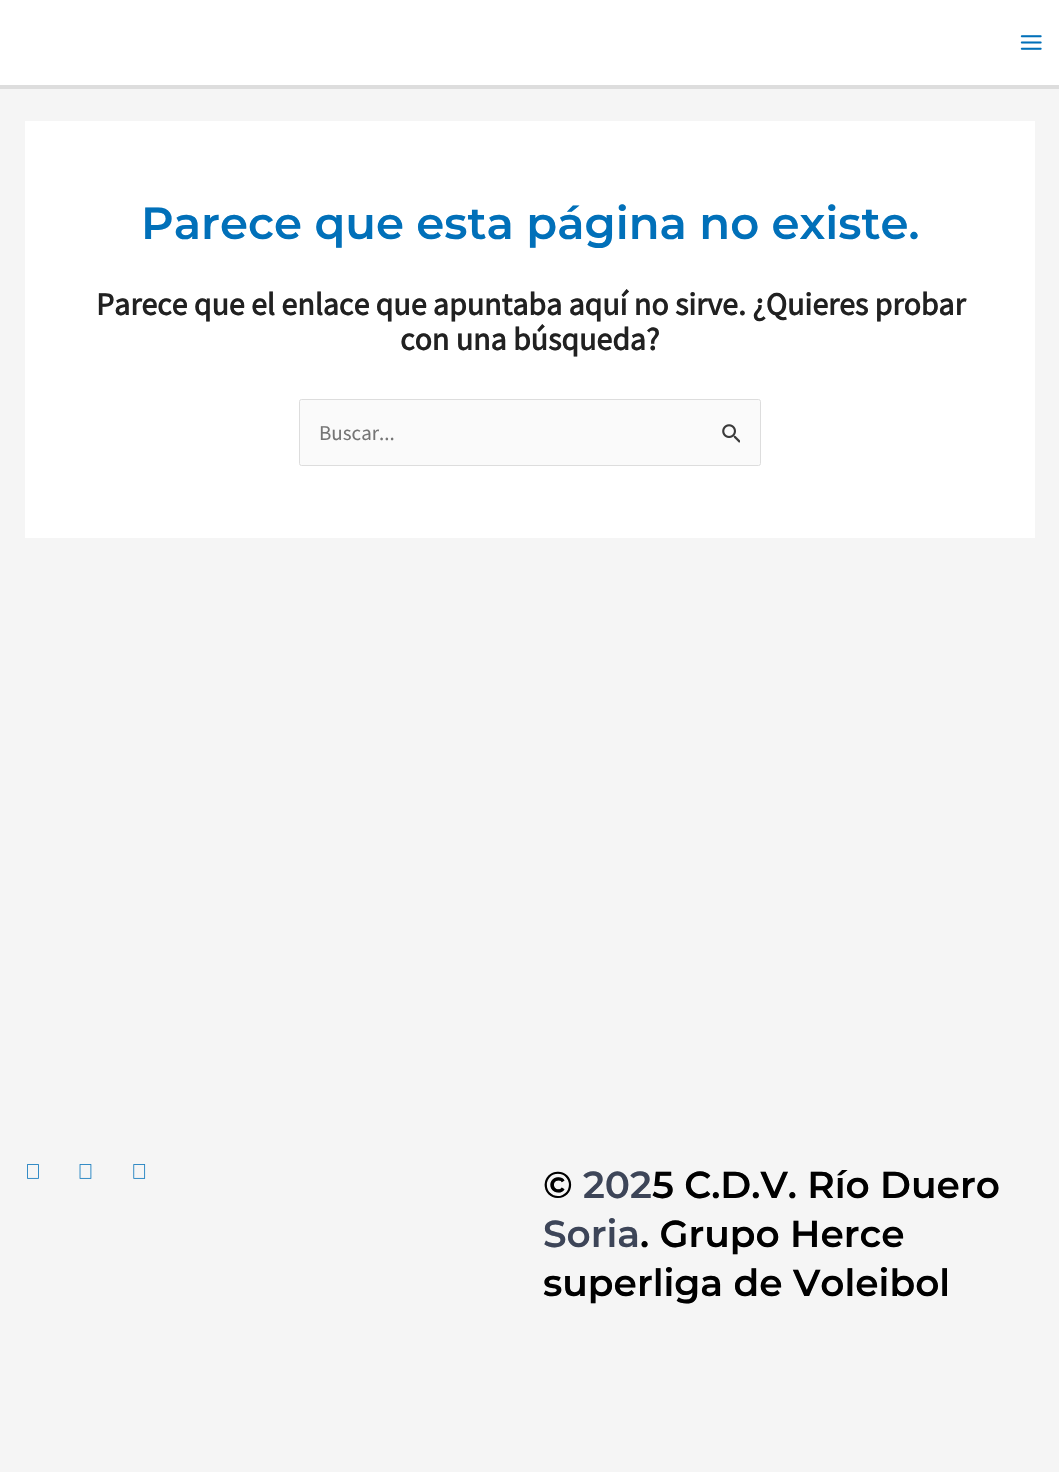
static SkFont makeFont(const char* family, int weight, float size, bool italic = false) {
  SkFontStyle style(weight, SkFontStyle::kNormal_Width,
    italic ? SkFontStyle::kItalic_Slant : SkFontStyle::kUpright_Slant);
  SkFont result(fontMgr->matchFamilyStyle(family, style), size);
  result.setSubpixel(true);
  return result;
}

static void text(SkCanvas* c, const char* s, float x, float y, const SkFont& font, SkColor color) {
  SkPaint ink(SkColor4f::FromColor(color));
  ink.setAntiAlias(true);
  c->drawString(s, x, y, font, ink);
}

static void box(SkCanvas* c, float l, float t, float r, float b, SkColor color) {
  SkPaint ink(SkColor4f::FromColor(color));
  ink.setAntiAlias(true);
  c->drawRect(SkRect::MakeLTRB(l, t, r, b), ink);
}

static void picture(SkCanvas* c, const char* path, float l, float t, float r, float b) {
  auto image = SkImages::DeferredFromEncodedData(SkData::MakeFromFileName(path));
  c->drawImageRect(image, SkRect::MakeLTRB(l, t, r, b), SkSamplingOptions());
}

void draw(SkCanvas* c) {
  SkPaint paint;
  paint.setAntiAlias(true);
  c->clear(0xfff5f5f5);
  box(c, 0, 0, 1059, 85, 0xffffffff);
  box(c, 0, 85, 1059, 89, 0xffdddddd);
  picture(c, "img_01.png", 1020, 35, 1042, 50);
  box(c, 25, 121, 1035, 538, 0xffffffff);
  SkFont face1 = makeFont("Montserrat", 600, 45);
  text(c, "Parece que esta página no existe.", 141, 239, face1, 0xff0170b9);
  SkFont face2 = makeFont("Source Sans Pro", 700, 31.9f);
  text(c, "Parece que el enlace que apuntaba aquí no sirve. ¿Quieres probar", 96, 315, face2, 0xff212121);
  text(c, "con una búsqueda?", 400, 350, face2, 0xff212121);
  paint.setColor(0xfffafafa);
  c->drawRoundRect(SkRect::MakeLTRB(299.5f, 399.5f, 760.5f, 465.5f), 2, 2, paint);
  paint.setStyle(SkPaint::kStroke_Style);
  paint.setStrokeWidth(1);
  paint.setColor(0xffdddddd);
  c->drawRoundRect(SkRect::MakeLTRB(299.5f, 399.5f, 760.5f, 465.5f), 2, 2, paint);
  SkFont face3 = makeFont("Source Sans Pro", 400, 21);
  text(c, "Buscar...", 319, 440, face3, 0xff757575);
  picture(c, "img_02.png", 722, 424, 740, 443);
  picture(c, "img_03.png", 27, 1164, 39, 1179);
  picture(c, "img_04.png", 79, 1164, 92, 1179);
  picture(c, "img_05.png", 133, 1164, 146, 1179);
  SkFont face4 = makeFont("Montserrat", 600, 37.5f);
  text(c, "©", 543, 1198, face4, 0xff000000);
  text(c, "202", 583, 1198, face4, 0xff3d4558);
  text(c, "5 C.D.V. Río Duero", 652, 1198, face4, 0xff000000);
  text(c, "Soria", 543, 1247, face4, 0xff3d4558);
  text(c, ". Grupo Herce", 640, 1247, face4, 0xff000000);
  text(c, "superliga de Voleibol", 543, 1296, face4, 0xff000000);
}
